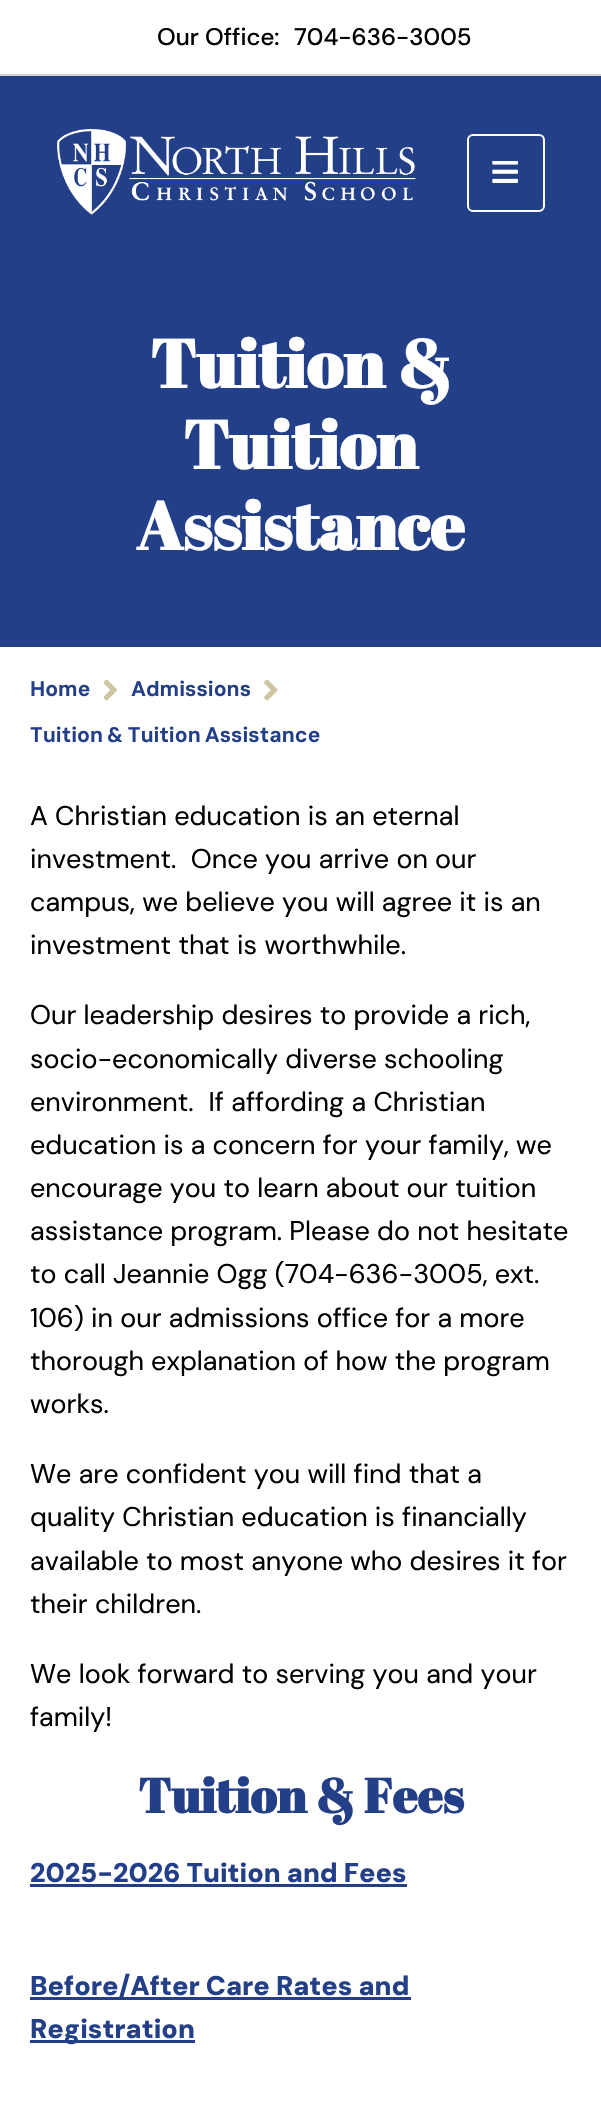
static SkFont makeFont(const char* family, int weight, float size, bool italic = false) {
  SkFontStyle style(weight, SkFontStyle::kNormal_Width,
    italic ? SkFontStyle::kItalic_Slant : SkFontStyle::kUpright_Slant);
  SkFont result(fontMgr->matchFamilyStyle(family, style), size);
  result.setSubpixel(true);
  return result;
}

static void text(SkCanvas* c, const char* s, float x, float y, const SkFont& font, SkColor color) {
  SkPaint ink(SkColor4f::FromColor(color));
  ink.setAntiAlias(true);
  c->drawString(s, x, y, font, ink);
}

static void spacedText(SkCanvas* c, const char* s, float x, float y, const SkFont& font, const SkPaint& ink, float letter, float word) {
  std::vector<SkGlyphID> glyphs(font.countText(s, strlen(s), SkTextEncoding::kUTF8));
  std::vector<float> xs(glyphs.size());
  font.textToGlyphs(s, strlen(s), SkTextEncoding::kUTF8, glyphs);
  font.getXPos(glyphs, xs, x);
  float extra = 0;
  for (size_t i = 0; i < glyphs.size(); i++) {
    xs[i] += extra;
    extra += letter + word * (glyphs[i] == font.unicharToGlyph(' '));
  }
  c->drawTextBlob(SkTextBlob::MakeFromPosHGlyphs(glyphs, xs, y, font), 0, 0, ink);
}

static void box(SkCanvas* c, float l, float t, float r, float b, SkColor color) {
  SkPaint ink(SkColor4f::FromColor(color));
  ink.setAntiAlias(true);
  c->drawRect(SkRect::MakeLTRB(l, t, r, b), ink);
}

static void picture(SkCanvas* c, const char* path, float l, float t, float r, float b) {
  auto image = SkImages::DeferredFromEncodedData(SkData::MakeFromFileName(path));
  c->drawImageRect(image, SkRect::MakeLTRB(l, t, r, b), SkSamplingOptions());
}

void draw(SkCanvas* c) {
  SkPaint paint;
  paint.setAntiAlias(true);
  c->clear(0xffffffff);
  box(c, 0, 74, 601, 76, 0xffd4d3d3);
  SkFont face1 = makeFont("DM Sans", 500, 24);
  text(c, "Our Office:", 157, 45, face1, 0xff000000);
  text(c, "704-636-3005", 294, 45, face1, 0xff000000);
  box(c, 0, 76, 601, 647, 0xff233f87);
  picture(c, "img_01.png", 57, 129, 416, 215);
  paint.setStyle(SkPaint::kStroke_Style);
  paint.setStrokeWidth(2);
  paint.setColor(0xffffffff);
  c->drawRoundRect(SkRect::MakeLTRB(468, 135, 544, 211), 5, 5, paint);
  picture(c, "img_02.png", 492, 161, 518, 183);
  SkFont face2 = makeFont("Abril Fatface", 700, 67.5f);
  text(c, "Tuition &", 150, 388, face2, 0xffffffff);
  text(c, "Tuition", 183, 469, face2, 0xffffffff);
  text(c, "Assistance", 136, 550, face2, 0xffffffff);
  SkFont face3 = makeFont("DM Sans", 700, 21);
  text(c, "Home", 30, 696, face3, 0xff233f87);
  picture(c, "img_03.png", 104, 680, 117, 701);
  text(c, "Admissions", 131, 696, face3, 0xff233f87);
  picture(c, "img_04.png", 264, 680, 278, 701);
  paint.setStyle(SkPaint::kFill_Style);
  paint.setColor(0xff233f87);
  spacedText(c, "Tuition & Tuition Assistance", 30, 742, face3, paint, 0, -1);
  SkFont face4 = makeFont("DM Sans", 400, 27);
  text(c, "A Christian education is an eternal", 30, 825, face4, 0xff000000);
  text(c, "investment.  Once you arrive on our", 30, 868, face4, 0xff000000);
  text(c, "campus, we believe you will agree it is an", 30, 911, face4, 0xff000000);
  paint.setColor(0xff000000);
  spacedText(c, "investment that is worthwhile.", 30, 954, face4, paint, 0, 0.25f);
  text(c, "Our leadership desires to provide a rich,", 30, 1024, face4, 0xff000000);
  text(c, "socio-economically diverse schooling", 30, 1068, face4, 0xff000000);
  spacedText(c, "environment.  If affording a Christian", 30, 1111, face4, paint, 0, 0.25f);
  text(c, "education is a concern for your family, we", 30, 1154, face4, 0xff000000);
  text(c, "encourage you to learn about our tuition", 30, 1197, face4, 0xff000000);
  text(c, "assistance program. Please do not hesitate", 30, 1240, face4, 0xff000000);
  text(c, "to call Jeannie Ogg (704-636-3005, ext.", 30, 1283, face4, 0xff000000);
  text(c, "106) in our admissions office for a more", 30, 1327, face4, 0xff000000);
  text(c, "thorough explanation of how the program", 30, 1370, face4, 0xff000000);
  text(c, "works.", 30, 1413, face4, 0xff000000);
  text(c, "We are confident you will find that a", 30, 1483, face4, 0xff000000);
  text(c, "quality Christian education is financially", 30, 1526, face4, 0xff000000);
  text(c, "available to most anyone who desires it for", 30, 1570, face4, 0xff000000);
  text(c, "their children.", 30, 1613, face4, 0xff000000);
  text(c, "We look forward to serving you and your", 30, 1683, face4, 0xff000000);
  text(c, "family!", 30, 1726, face4, 0xff000000);
  SkFont face5 = makeFont("Abril Fatface", 700, 48.5f);
  text(c, "Tuition & Fees", 138, 1813, face5, 0xff233f87);
  SkFont face6 = makeFont("DM Sans", 900, 27);
  text(c, "2025-2026 Tuition and Fees", 30, 1882, face6, 0xff233f87);
  box(c, 30, 1884, 407, 1887, 0xff233f87);
  box(c, 30, 1997, 411, 2000, 0xff233f87);
  text(c, "Before/After Care Rates and", 30, 1995, face6, 0xff233f87);
  box(c, 30, 2040, 195, 2043, 0xff233f87);
  text(c, "Registration", 30, 2038, face6, 0xff233f87);
}
